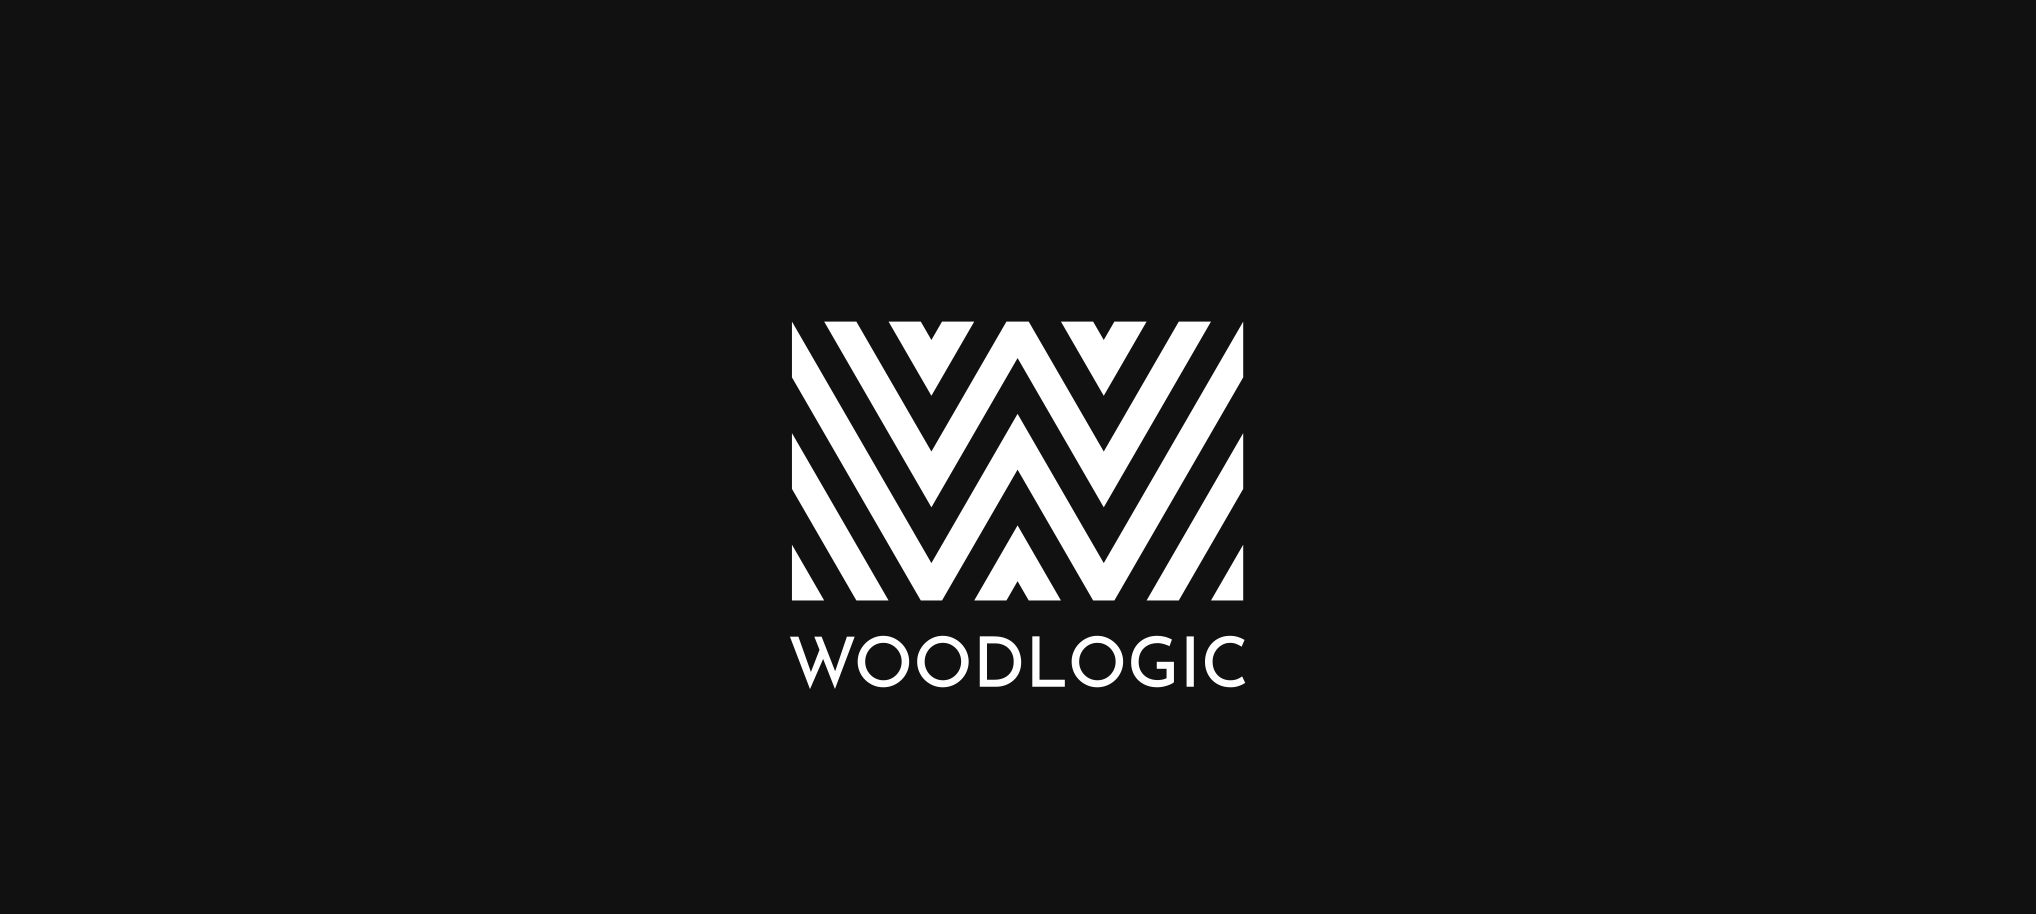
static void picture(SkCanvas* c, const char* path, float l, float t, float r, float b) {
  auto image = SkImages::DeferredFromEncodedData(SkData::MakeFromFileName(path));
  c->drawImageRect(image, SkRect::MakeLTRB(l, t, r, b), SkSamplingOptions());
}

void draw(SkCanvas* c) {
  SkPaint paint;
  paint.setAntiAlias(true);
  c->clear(0xff111111);
  picture(c, "img_01.png", 790, 321, 1246, 689);
}
